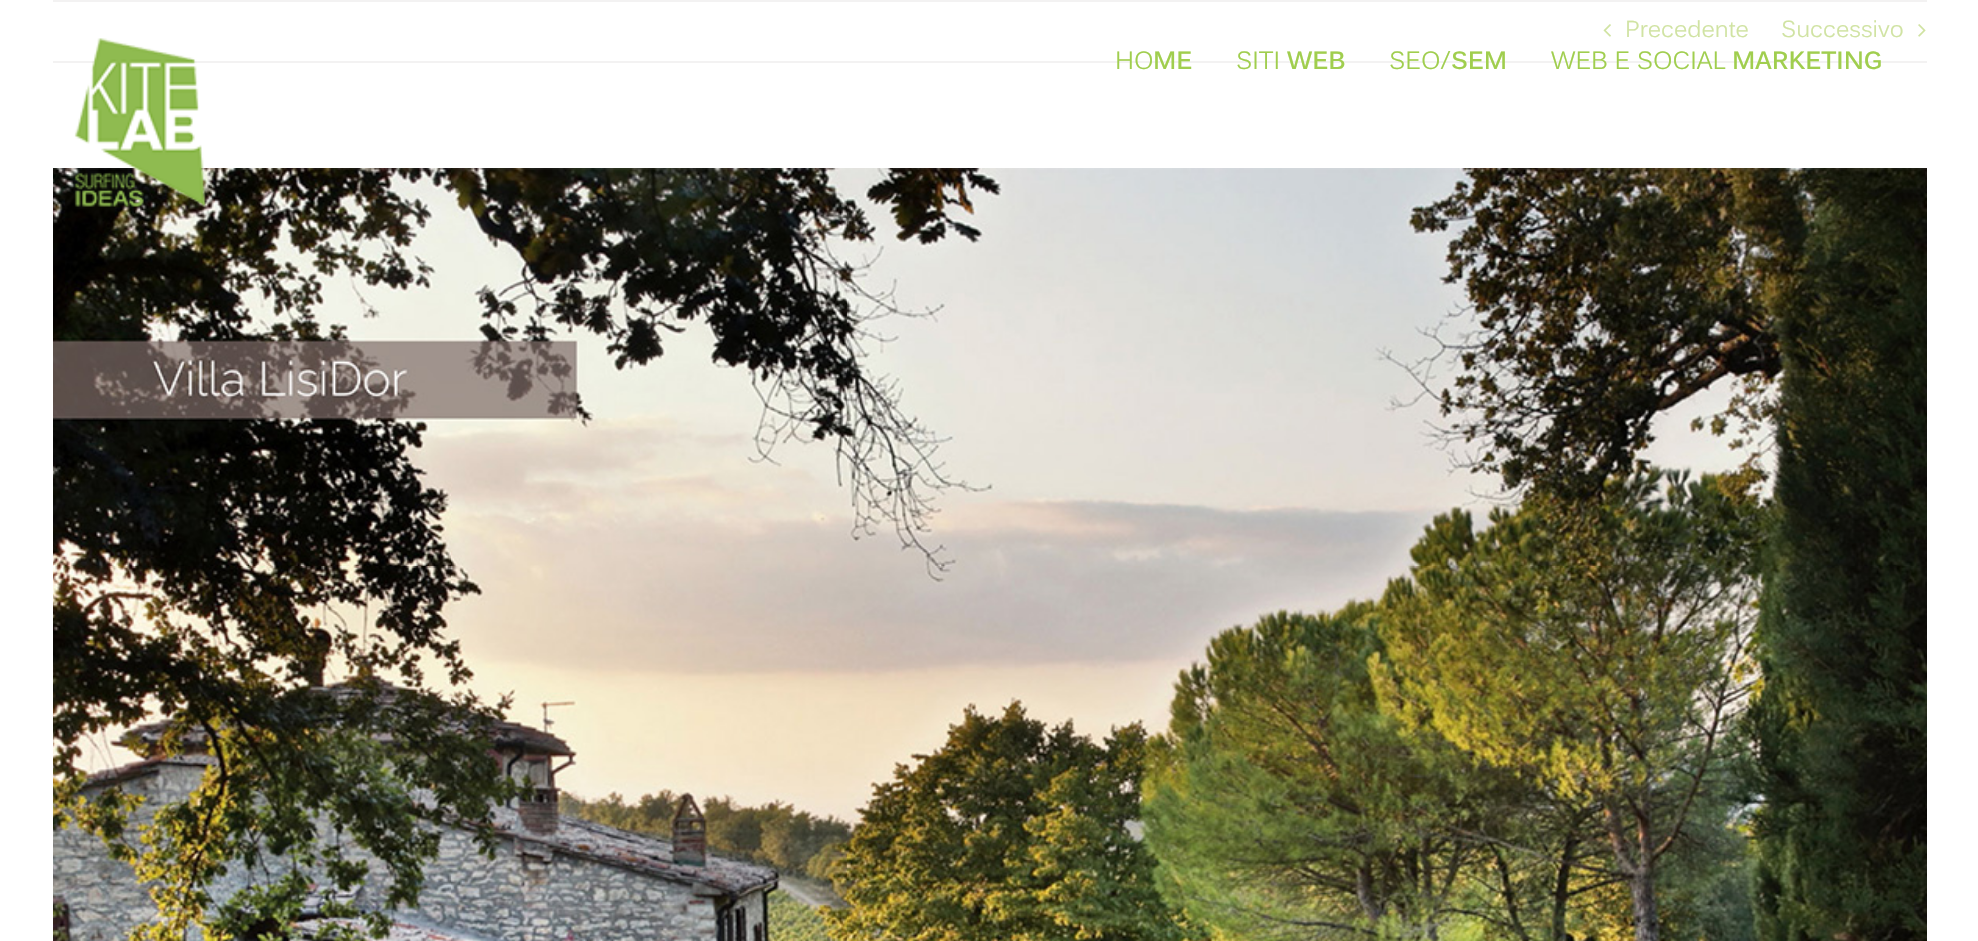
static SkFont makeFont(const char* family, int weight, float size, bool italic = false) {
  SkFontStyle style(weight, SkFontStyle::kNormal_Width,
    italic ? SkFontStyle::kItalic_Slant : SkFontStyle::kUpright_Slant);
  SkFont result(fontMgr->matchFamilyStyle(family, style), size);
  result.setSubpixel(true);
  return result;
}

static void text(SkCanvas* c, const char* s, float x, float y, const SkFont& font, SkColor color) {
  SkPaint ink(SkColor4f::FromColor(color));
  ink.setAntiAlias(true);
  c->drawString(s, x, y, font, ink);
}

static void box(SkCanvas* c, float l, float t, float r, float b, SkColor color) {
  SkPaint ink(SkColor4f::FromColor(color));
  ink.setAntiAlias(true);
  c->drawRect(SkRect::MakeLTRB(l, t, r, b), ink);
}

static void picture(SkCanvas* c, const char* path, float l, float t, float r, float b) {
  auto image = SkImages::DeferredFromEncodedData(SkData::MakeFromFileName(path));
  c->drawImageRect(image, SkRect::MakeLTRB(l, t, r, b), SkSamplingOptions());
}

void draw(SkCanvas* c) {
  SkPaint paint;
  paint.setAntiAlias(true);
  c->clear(0xffffffff);
  box(c, 53, 0, 1927, 2, 0xfff3f2f2);
  box(c, 53, 61, 1927, 63, 0xfff3f2f2);
  picture(c, "img_01.png", 1603, 24, 1611, 37);
  SkFont face1 = makeFont("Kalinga", 400, 22.75f);
  text(c, "Precedente", 1625, 37, face1, 0xffd0e3a2);
  text(c, "Successivo", 1781, 37, face1, 0xffd0e3a2);
  picture(c, "img_02.png", 1918, 24, 1926, 37);
  picture(c, "img_03.png", 53, 168, 1927, 941);
  picture(c, "img_04.png", 74, 38, 206, 207);
  SkFont face2 = makeFont("Kalinga", 400, 24.5f);
  text(c, "HO", 1115, 69, face2, 0xffa0ce4e);
  SkFont face3 = makeFont("Kalinga", 700, 24.5f);
  text(c, "ME", 1153, 69, face3, 0xffa0ce4e);
  text(c, "SITI", 1236, 69, face2, 0xffa0ce4e);
  text(c, "WEB", 1287, 69, face3, 0xffa0ce4e);
  text(c, "SEO/", 1389, 69, face2, 0xffa0ce4e);
  text(c, "SEM", 1451, 69, face3, 0xffa0ce4e);
  text(c, "WEB E SOCIAL", 1551, 69, face2, 0xffa0ce4e);
  text(c, "MARKETING", 1732, 69, face3, 0xffa0ce4e);
}
